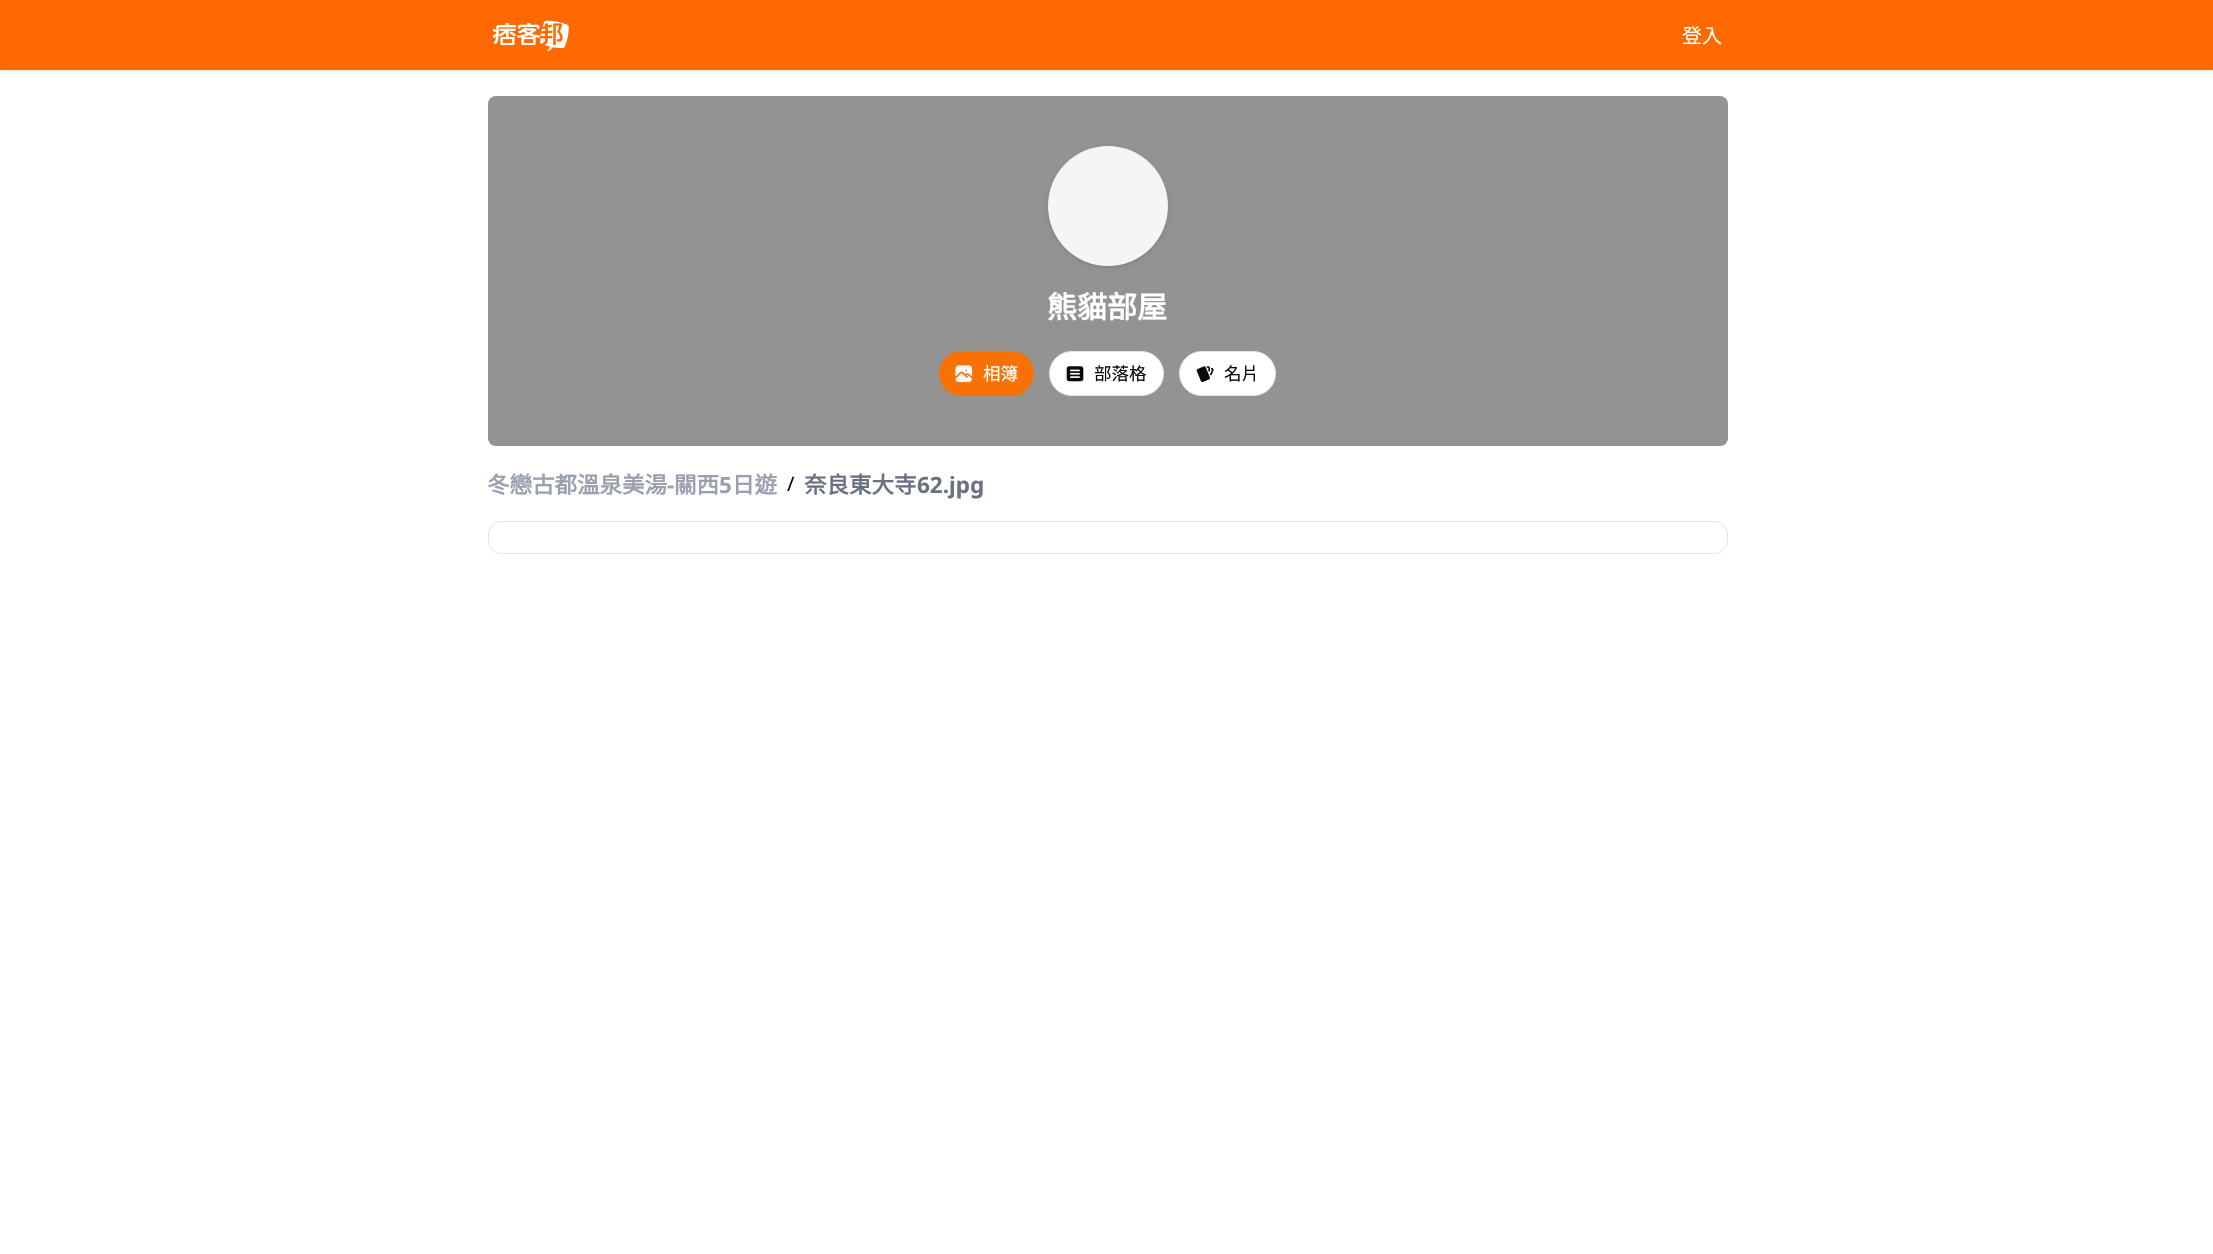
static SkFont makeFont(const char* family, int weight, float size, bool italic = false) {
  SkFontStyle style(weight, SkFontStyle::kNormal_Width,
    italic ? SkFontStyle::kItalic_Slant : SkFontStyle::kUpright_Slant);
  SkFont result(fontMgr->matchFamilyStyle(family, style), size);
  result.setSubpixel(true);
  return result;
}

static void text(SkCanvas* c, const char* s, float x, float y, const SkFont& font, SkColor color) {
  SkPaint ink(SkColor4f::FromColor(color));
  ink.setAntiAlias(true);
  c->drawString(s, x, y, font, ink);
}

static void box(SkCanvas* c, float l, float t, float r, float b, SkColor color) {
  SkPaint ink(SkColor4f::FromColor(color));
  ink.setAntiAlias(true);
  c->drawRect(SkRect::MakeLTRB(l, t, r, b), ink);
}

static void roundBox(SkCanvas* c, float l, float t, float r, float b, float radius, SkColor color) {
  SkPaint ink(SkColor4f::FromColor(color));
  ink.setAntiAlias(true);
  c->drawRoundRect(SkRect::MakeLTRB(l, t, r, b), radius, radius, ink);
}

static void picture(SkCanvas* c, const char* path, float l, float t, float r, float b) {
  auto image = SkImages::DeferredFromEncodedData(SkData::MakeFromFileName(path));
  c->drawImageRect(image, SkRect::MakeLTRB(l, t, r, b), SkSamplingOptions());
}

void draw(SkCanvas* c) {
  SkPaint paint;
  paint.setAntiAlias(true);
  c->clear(0xffffffff);
  paint.setColor(0x1a000000);
  paint.setMaskFilter(SkMaskFilter::MakeBlur(kNormal_SkBlurStyle, 1));
  c->drawRect(SkRect::MakeLTRB(1, 3, 2213, 70), paint);
  paint.setMaskFilter(nullptr);
  paint.setMaskFilter(SkMaskFilter::MakeBlur(kNormal_SkBlurStyle, 2));
  c->drawRect(SkRect::MakeLTRB(0, 1, 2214, 71), paint);
  paint.setMaskFilter(nullptr);
  box(c, 0, 0, 2213, 70, 0xffff6900);
  picture(c, "img_01.png", 493, 20, 569, 51);
  SkFont face1 = makeFont("Noto Sans CJK TC", 400, 20);
  text(c, "登入", 1682, 43, face1, 0xffffffff);
  roundBox(c, 488, 96, 1728, 446, 8, 0xfff5f5f5);
  roundBox(c, 488, 96, 1728, 446, 8, 0x66000000);
  paint.setMaskFilter(SkMaskFilter::MakeBlur(kNormal_SkBlurStyle, 1));
  c->drawRoundRect(SkRect::MakeLTRB(1049, 149, 1166, 266), 58.5f, 58.5f, paint);
  paint.setMaskFilter(nullptr);
  paint.setMaskFilter(SkMaskFilter::MakeBlur(kNormal_SkBlurStyle, 2));
  c->drawRoundRect(SkRect::MakeLTRB(1048, 148, 1168, 268), 60, 60, paint);
  paint.setMaskFilter(nullptr);
  paint.setColor(0xfff5f5f5);
  c->drawCircle(1108, 206, 60, paint);
  SkFont face2 = makeFont("Noto Sans CJK TC", 700, 30);
  text(c, "熊貓部屋", 1047, 318, face2, 0xffffffff);
  roundBox(c, 939, 351, 1034, 396, 22.5f, 0xfff87103);
  picture(c, "img_02.png", 955, 365, 973, 383);
  SkFont face3 = makeFont("Noto Sans CJK TC", 400, 17.5f);
  text(c, "相簿", 983, 380, face3, 0xffffffff);
  paint.setColor(0xffffffff);
  c->drawRoundRect(SkRect::MakeLTRB(1049.5f, 351.5f, 1163.5f, 395.5f), 22, 22, paint);
  paint.setStyle(SkPaint::kStroke_Style);
  paint.setStrokeWidth(1);
  paint.setColor(0xffe5e5e5);
  c->drawRoundRect(SkRect::MakeLTRB(1049.5f, 351.5f, 1163.5f, 395.5f), 22, 22, paint);
  picture(c, "img_03.png", 1066, 366, 1084, 382);
  text(c, "部落格", 1094, 380, face3, 0xff0a0a0a);
  paint.setStyle(SkPaint::kFill_Style);
  paint.setColor(0xffffffff);
  c->drawRoundRect(SkRect::MakeLTRB(1179.5f, 351.5f, 1275.5f, 395.5f), 22, 22, paint);
  paint.setStyle(SkPaint::kStroke_Style);
  paint.setColor(0xffe5e5e5);
  c->drawRoundRect(SkRect::MakeLTRB(1179.5f, 351.5f, 1275.5f, 395.5f), 22, 22, paint);
  picture(c, "img_04.png", 1196, 366, 1214, 383);
  text(c, "名片", 1224, 380, face3, 0xff0a0a0a);
  SkFont face4 = makeFont("Noto Sans CJK TC", 700, 22.5f);
  text(c, "冬戀古都溫泉美湯", 487, 493, face4, 0xff99a1af);
  SkFont face5 = makeFont("Noto Sans", 700, 22.5f);
  text(c, "-", 667, 493, face5, 0xff99a1af);
  text(c, "關西", 674, 493, face4, 0xff99a1af);
  text(c, "5", 719, 493, face5, 0xff99a1af);
  text(c, "日遊", 732, 493, face4, 0xff99a1af);
  SkFont face6 = makeFont("Noto Sans", 400, 20);
  text(c, "/", 787, 491, face6, 0xff0a0a0a);
  text(c, "奈良東大寺", 804, 493, face4, 0xff6a7282);
  text(c, "62.jpg", 917, 493, face5, 0xff6a7282);
  c->drawRoundRect(SkRect::MakeLTRB(488.5f, 521.5f, 1727.5f, 553.5f), 12.5f, 12.5f, paint);
}
